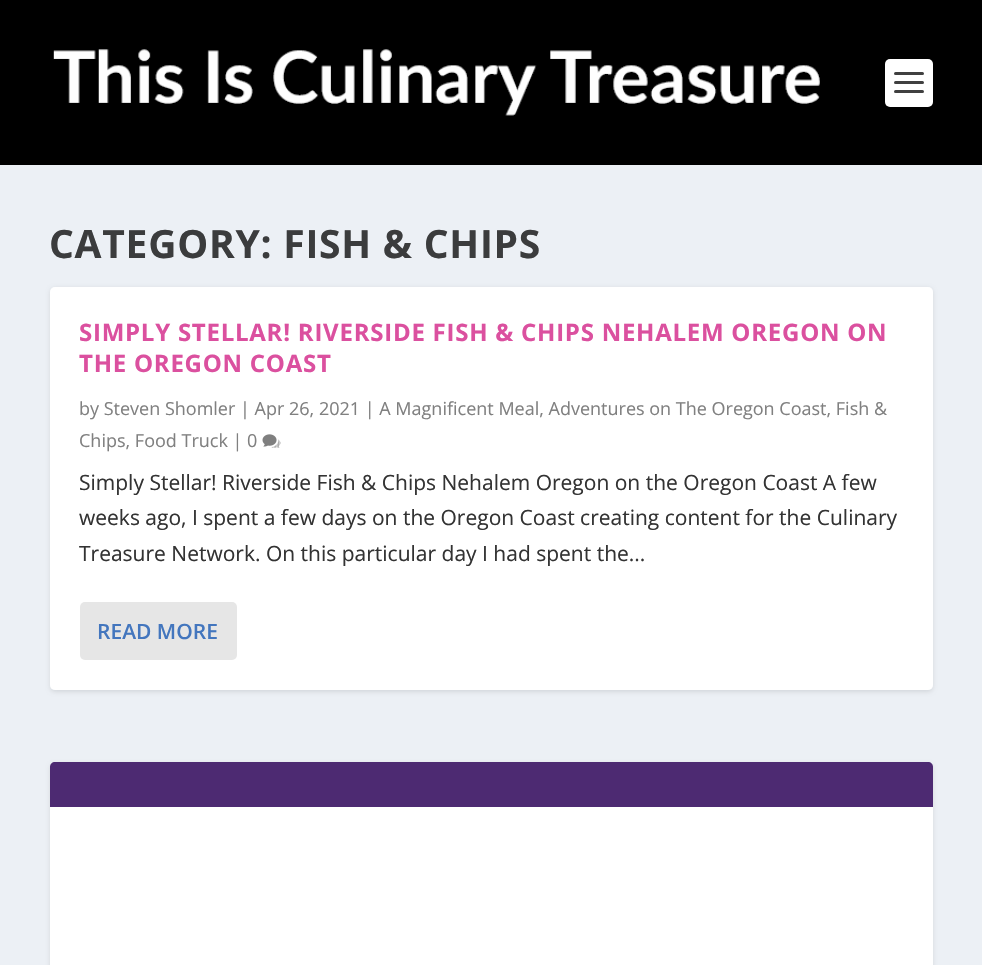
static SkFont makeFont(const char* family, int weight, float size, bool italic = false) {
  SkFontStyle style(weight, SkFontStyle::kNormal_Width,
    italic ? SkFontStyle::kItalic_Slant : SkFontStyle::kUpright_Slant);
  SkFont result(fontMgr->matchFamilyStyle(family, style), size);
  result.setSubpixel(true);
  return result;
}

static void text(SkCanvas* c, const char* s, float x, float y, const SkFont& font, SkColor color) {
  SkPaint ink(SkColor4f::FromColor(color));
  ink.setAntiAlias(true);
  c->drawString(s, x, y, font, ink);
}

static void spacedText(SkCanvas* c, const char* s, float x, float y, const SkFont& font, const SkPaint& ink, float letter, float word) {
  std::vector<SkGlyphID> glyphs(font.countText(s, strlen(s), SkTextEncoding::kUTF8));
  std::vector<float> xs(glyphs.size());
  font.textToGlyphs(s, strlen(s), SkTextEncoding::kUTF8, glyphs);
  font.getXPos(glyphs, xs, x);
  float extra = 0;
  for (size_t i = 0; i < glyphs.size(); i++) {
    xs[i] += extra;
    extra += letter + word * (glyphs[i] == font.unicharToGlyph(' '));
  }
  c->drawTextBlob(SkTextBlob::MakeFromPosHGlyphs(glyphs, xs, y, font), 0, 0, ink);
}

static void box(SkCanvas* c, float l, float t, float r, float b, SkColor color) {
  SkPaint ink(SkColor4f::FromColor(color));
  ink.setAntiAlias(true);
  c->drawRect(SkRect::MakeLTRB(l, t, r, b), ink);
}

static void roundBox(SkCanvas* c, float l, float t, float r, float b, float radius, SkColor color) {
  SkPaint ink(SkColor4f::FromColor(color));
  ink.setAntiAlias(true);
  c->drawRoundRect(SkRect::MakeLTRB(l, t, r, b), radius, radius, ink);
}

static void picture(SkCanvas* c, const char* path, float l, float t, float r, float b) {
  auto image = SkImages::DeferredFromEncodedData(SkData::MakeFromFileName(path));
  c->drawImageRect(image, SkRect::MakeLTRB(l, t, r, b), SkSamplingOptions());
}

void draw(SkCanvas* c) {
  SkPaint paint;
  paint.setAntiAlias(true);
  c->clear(0xffecf0f5);
  box(c, 0, 0, 982, 165, 0xff000000);
  picture(c, "img_01.png", 53, 49, 820, 116);
  roundBox(c, 885, 59, 933, 107, 5, 0xffffffff);
  roundBox(c, 894, 72, 924, 75, 1.5f, 0xff404040);
  roundBox(c, 894, 81, 924, 84, 1.5f, 0xff404040);
  roundBox(c, 894, 90, 924, 93, 1.5f, 0xff404040);
  SkFont face1 = makeFont("Open Sans", 700, 39);
  paint.setColor(0xff3b3c3d);
  spacedText(c, "CATEGORY: FISH & CHIPS", 49, 258, face1, paint, 0.75f, 0);
  c->save();
  c->clipPath(SkPathBuilder(SkPathFillType::kEvenOdd).moveTo(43, 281).lineTo(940, 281).lineTo(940, 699).lineTo(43, 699).close().moveTo(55, 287).lineTo(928, 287).cubicTo(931, 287, 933, 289, 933, 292).lineTo(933, 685).cubicTo(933, 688, 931, 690, 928, 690).lineTo(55, 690).cubicTo(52, 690, 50, 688, 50, 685).lineTo(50, 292).cubicTo(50, 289, 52, 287, 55, 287).close().detach(), true);
  paint.setColor(0x1a000000);
  paint.setMaskFilter(SkMaskFilter::MakeBlur(kNormal_SkBlurStyle, 2));
  c->drawRoundRect(SkRect::MakeLTRB(50, 288, 933, 692), 5, 5, paint);
  paint.setMaskFilter(nullptr);
  c->restore();
  roundBox(c, 50, 287, 933, 690, 5, 0xffffffff);
  SkFont face2 = makeFont("Open Sans", 700, 24);
  paint.setColor(0xffdb509f);
  spacedText(c, "SIMPLY STELLAR! RIVERSIDE FISH & CHIPS NEHALEM OREGON ON", 79, 341, face2, paint, 0.75f, 0);
  spacedText(c, "THE OREGON COAST", 79, 372, face2, paint, 0.75f, 0);
  SkFont face3 = makeFont("Open Sans", 400, 18);
  text(c, "by Steven Shomler | Apr 26, 2021 | A Magnificent Meal, Adventures on The Oregon Coast, Fish &", 79, 415, face3, 0xff808080);
  text(c, "Chips, Food Truck | 0", 79, 447, face3, 0xff808080);
  picture(c, "img_02.png", 262, 434, 281, 448);
  SkFont face4 = makeFont("Open Sans", 400, 21);
  text(c, "Simply Stellar! Riverside Fish & Chips Nehalem Oregon on the Oregon Coast A few", 79, 490, face4, 0xff333333);
  text(c, "weeks ago, I spent a few days on the Oregon Coast creating content for the Culinary", 79, 525, face4, 0xff333333);
  text(c, "Treasure Network. On this particular day I had spent the...", 79, 561, face4, 0xff333333);
  roundBox(c, 80, 602, 237, 660, 5, 0xffe6e6e6);
  SkFont face5 = makeFont("Open Sans", 600, 21);
  text(c, "READ MORE", 97, 639, face5, 0xff4376be);
  paint.setColor(0x1a000000);
  paint.setMaskFilter(SkMaskFilter::MakeBlur(kNormal_SkBlurStyle, 2));
  c->drawRoundRect(SkRect::MakeLTRB(50, 764, 933, 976), 5, 5, paint);
  paint.setMaskFilter(nullptr);
  roundBox(c, 50, 762, 933, 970, 5, 0xffffffff);
  paint.setColor(0xff4d2a72);
  c->drawPath(SkPathBuilder().moveTo(55, 762).lineTo(928, 762).cubicTo(931, 762, 933, 764, 933, 767).lineTo(933, 807).lineTo(50, 807).lineTo(50, 767).cubicTo(50, 764, 52, 762, 55, 762).close().detach(), paint);
}
